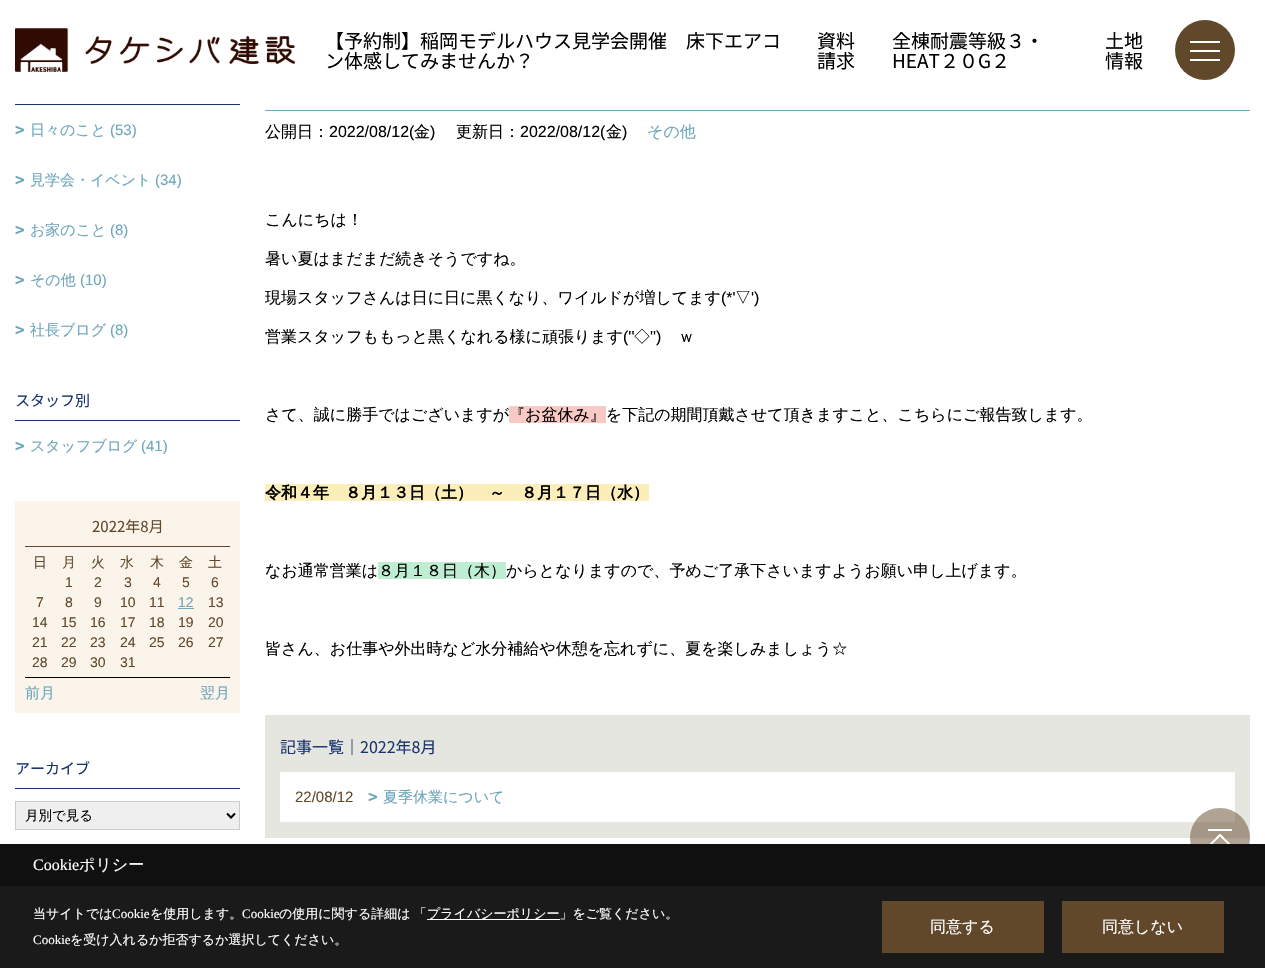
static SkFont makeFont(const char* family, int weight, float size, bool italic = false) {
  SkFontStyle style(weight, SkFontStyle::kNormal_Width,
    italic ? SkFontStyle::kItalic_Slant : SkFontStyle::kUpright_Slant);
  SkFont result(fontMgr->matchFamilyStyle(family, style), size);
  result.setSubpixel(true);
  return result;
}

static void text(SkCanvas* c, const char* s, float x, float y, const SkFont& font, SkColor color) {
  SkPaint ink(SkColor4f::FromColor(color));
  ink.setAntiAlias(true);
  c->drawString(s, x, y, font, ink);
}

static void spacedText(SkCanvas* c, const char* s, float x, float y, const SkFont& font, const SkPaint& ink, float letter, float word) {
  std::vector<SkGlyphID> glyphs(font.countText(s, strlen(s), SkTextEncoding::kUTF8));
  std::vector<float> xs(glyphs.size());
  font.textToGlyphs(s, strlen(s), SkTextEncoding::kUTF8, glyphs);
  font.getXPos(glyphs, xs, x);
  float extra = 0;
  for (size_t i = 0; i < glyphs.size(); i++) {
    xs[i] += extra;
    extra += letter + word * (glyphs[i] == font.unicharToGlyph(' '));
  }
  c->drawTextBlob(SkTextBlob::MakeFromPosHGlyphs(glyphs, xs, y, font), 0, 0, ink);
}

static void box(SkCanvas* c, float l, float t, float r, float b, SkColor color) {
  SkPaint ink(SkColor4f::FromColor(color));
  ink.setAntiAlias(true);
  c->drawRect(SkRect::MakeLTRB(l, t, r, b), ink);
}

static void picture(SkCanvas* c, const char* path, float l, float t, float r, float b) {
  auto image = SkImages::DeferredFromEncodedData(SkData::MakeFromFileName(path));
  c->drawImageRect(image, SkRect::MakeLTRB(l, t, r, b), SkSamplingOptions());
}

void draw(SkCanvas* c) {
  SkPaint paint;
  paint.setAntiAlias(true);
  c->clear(0xffffffff);
  picture(c, "img_01.png", 15, 28, 295, 72);
  SkFont face1 = makeFont("Noto Sans JP", 100, 19);
  text(c, "【予約制】稲岡モデルハウス見学会開催　床下エアコ", 325, 48, face1, 0xff000000);
  text(c, "ン体感してみませんか？", 325, 68, face1, 0xff000000);
  text(c, "資料", 817, 48, face1, 0xff000000);
  text(c, "請求", 817, 68, face1, 0xff000000);
  text(c, "全棟耐震等級３・", 892, 48, face1, 0xff000000);
  text(c, "HEAT２０G２", 892, 68, face1, 0xff000000);
  text(c, "土地", 1105, 48, face1, 0xff000000);
  text(c, "情報", 1105, 68, face1, 0xff000000);
  paint.setColor(0xff62482a);
  c->drawCircle(1205, 50, 30, paint);
  box(c, 1190, 41, 1220, 43, 0xffffffff);
  box(c, 1190, 50, 1220, 52, 0xffffffff);
  box(c, 1190, 59, 1220, 61, 0xffffffff);
  box(c, 15, 104, 240, 105, 0xff19346d);
  SkFont face2 = makeFont("DejaVu Sans Mono", 700, 16);
  text(c, ">", 15, 135, face2, 0xff6ea6bb);
  SkFont face3 = makeFont("WenQuanYi Zen Hei", 500, 15);
  text(c, "日々のこと", 30, 135, face3, 0xff6ea6bb);
  SkFont face4 = makeFont("Liberation Sans", 400, 15);
  text(c, "(53)", 110, 135, face4, 0xff6ea6bb);
  text(c, ">", 15, 185, face2, 0xff6ea6bb);
  text(c, "見学会・イベント", 30, 185, face3, 0xff6ea6bb);
  text(c, "(34)", 155, 185, face4, 0xff6ea6bb);
  text(c, ">", 15, 235, face2, 0xff6ea6bb);
  text(c, "お家のこと", 30, 235, face3, 0xff6ea6bb);
  text(c, "(8)", 110, 235, face4, 0xff6ea6bb);
  text(c, ">", 15, 285, face2, 0xff6ea6bb);
  text(c, "その他", 30, 285, face3, 0xff6ea6bb);
  text(c, "(10)", 80, 285, face4, 0xff6ea6bb);
  text(c, ">", 15, 335, face2, 0xff6ea6bb);
  text(c, "社長ブログ", 30, 335, face3, 0xff6ea6bb);
  text(c, "(8)", 110, 335, face4, 0xff6ea6bb);
  box(c, 15, 420, 240, 421, 0xff19346d);
  SkFont face5 = makeFont("Noto Sans JP", 100, 15);
  text(c, "スタッフ別", 15, 406, face5, 0xff19346d);
  text(c, ">", 15, 451, face2, 0xff6ea6bb);
  text(c, "スタッフブログ", 30, 451, face3, 0xff6ea6bb);
  text(c, "(41)", 141, 451, face4, 0xff6ea6bb);
  box(c, 15, 501, 240, 713, 0xfffbf4eb);
  box(c, 25, 546, 230, 547, 0xff62482a);
  text(c, "2022年8月", 92, 532, face5, 0xff62482a);
  SkFont face6 = makeFont("WenQuanYi Zen Hei", 500, 14);
  text(c, "日", 33, 567, face6, 0xff62482a);
  text(c, "月", 62, 567, face6, 0xff62482a);
  text(c, "火", 91, 567, face6, 0xff62482a);
  text(c, "水", 120, 567, face6, 0xff62482a);
  text(c, "木", 150, 567, face6, 0xff62482a);
  text(c, "金", 179, 567, face6, 0xff62482a);
  text(c, "土", 208, 567, face6, 0xff62482a);
  SkFont face7 = makeFont("Liberation Sans", 400, 14);
  text(c, "1", 65, 587, face7, 0xff62482a);
  text(c, "2", 94, 587, face7, 0xff62482a);
  text(c, "3", 124, 587, face7, 0xff62482a);
  text(c, "4", 153, 587, face7, 0xff62482a);
  text(c, "5", 182, 587, face7, 0xff62482a);
  text(c, "6", 211, 587, face7, 0xff62482a);
  text(c, "7", 36, 607, face7, 0xff62482a);
  text(c, "8", 65, 607, face7, 0xff62482a);
  text(c, "9", 94, 607, face7, 0xff62482a);
  text(c, "10", 120, 607, face7, 0xff62482a);
  text(c, "11", 149, 607, face7, 0xff62482a);
  text(c, "12", 178, 607, face7, 0xff6ea6bb);
  box(c, 178, 608, 194, 609, 0xff6ea6bb);
  text(c, "13", 208, 607, face7, 0xff62482a);
  text(c, "14", 32, 627, face7, 0xff62482a);
  text(c, "15", 61, 627, face7, 0xff62482a);
  text(c, "16", 90, 627, face7, 0xff62482a);
  text(c, "17", 120, 627, face7, 0xff62482a);
  text(c, "18", 149, 627, face7, 0xff62482a);
  text(c, "19", 178, 627, face7, 0xff62482a);
  text(c, "20", 208, 627, face7, 0xff62482a);
  text(c, "21", 32, 647, face7, 0xff62482a);
  text(c, "22", 61, 647, face7, 0xff62482a);
  text(c, "23", 90, 647, face7, 0xff62482a);
  text(c, "24", 120, 647, face7, 0xff62482a);
  text(c, "25", 149, 647, face7, 0xff62482a);
  text(c, "26", 178, 647, face7, 0xff62482a);
  text(c, "27", 208, 647, face7, 0xff62482a);
  text(c, "28", 32, 667, face7, 0xff62482a);
  text(c, "29", 61, 667, face7, 0xff62482a);
  text(c, "30", 90, 667, face7, 0xff62482a);
  text(c, "31", 120, 667, face7, 0xff62482a);
  box(c, 25, 677, 230, 678, 0xff000000);
  text(c, "前月", 25, 698, face3, 0xff6ea6bb);
  text(c, "翌月", 200, 698, face3, 0xff6ea6bb);
  box(c, 15, 788, 240, 789, 0xff19346d);
  text(c, "アーカイブ", 15, 774, face5, 0xff19346d);
  paint.setColor(0xffefefef);
  c->drawRect(SkRect::MakeLTRB(15.5f, 801.5f, 239.5f, 829.5f), paint);
  paint.setStyle(SkPaint::kStroke_Style);
  paint.setStrokeWidth(1);
  paint.setColor(0xffcccccc);
  c->drawRect(SkRect::MakeLTRB(15.5f, 801.5f, 239.5f, 829.5f), paint);
  paint.setStrokeWidth(2);
  paint.setColor(0xff000000);
  c->drawPath(SkPathBuilder().moveTo(227, 813.5f).lineTo(231, 817.5f).lineTo(235, 813.5f).detach(), paint);
  SkFont face8 = makeFont("WenQuanYi Zen Hei", 500, 13.5f);
  text(c, "月別で見る", 25, 820, face8, 0xff000000);
  box(c, 265, 110, 1250, 111, 0xff6ea6bb);
  SkFont face9 = makeFont("WenQuanYi Zen Hei", 500, 16);
  text(c, "公開日：", 265, 137, face9, 0xff000000);
  SkFont face10 = makeFont("Liberation Sans", 400, 16);
  text(c, "2022/08/12(", 329, 137, face10, 0xff000000);
  text(c, "金", 414, 137, face9, 0xff000000);
  text(c, ")", 430, 137, face10, 0xff000000);
  text(c, "更新日：", 456, 137, face9, 0xff000000);
  text(c, "2022/08/12(", 520, 137, face10, 0xff000000);
  text(c, "金", 606, 137, face9, 0xff000000);
  text(c, ")", 622, 137, face10, 0xff000000);
  text(c, "その他", 647, 137, face9, 0xff6ea6bb);
  text(c, "こんにちは！", 265, 225, face9, 0xff000000);
  text(c, "暑い夏はまだまだ続きそうですね。", 265, 264, face9, 0xff000000);
  text(c, "現場スタッフさんは日に日に黒くなり、ワイルドが増してます", 265, 303, face9, 0xff000000);
  text(c, "(*'", 721, 303, face10, 0xff000000);
  text(c, "▽", 735, 303, face9, 0xff000000);
  text(c, "')", 751, 303, face10, 0xff000000);
  text(c, "営業スタッフももっと黒くなれる様に頑張ります", 265, 342, face9, 0xff000000);
  text(c, "(''", 623, 342, face10, 0xff000000);
  text(c, "◇", 634, 342, face9, 0xff000000);
  text(c, "'')", 650, 342, face10, 0xff000000);
  text(c, "ゞｗ", 662, 342, face9, 0xff000000);
  text(c, "さて、誠に勝手ではございますが", 265, 420, face9, 0xff000000);
  box(c, 509, 406, 606, 423, 0xfff8cac6);
  text(c, "『お盆休み』を下記の期間頂戴させて頂きますこと、こちらにご報告致します。", 509, 420, face9, 0xff000000);
  box(c, 265, 484, 649, 501, 0xfffbeeb8);
  SkFont face11 = makeFont("WenQuanYi Zen Hei", 700, 16);
  text(c, "令和４年　８月１３日（土）　～　８月１７日（水）", 265, 498, face11, 0xff000000);
  text(c, "なお通常営業は", 265, 576, face9, 0xff000000);
  box(c, 378, 562, 506, 579, 0xffbfedd2);
  text(c, "８月１８日（木）からとなりますので、予めご了承下さいますようお願い申し上げます。", 378, 576, face9, 0xff000000);
  text(c, "皆さん、お仕事や外出時など水分補給や休憩を忘れずに、夏を楽しみましょう☆", 265, 654, face9, 0xff000000);
  box(c, 265, 715, 1250, 838, 0xffe6e6e1);
  SkFont face12 = makeFont("Noto Sans JP", 100, 16);
  text(c, "記事一覧｜2022年8月", 280, 753, face12, 0xff19346d);
  box(c, 280, 772, 1235, 822, 0xffffffff);
  box(c, 280, 822, 1235, 823, 0xffeae7e4);
  text(c, "22/08/12", 295, 802, face4, 0xff62482a);
  text(c, ">", 368, 802, face2, 0xff6ea6bb);
  text(c, "夏季休業について", 383, 802, face3, 0xff6ea6bb);
  paint.setStyle(SkPaint::kFill_Style);
  paint.setColor(0x8062482a);
  c->drawCircle(1220, 838, 30, paint);
  box(c, 1208, 829, 1232, 831, 0xffffffff);
  paint.setStyle(SkPaint::kStroke_Style);
  paint.setStrokeCap(SkPaint::kRound_Cap);
  paint.setStrokeJoin(SkPaint::kRound_Join);
  paint.setColor(0xffffffff);
  c->drawPath(SkPathBuilder().moveTo(1231, 846).lineTo(1220, 835).lineTo(1209, 846).detach(), paint);
  box(c, 0, 844, 1265, 886, 0xff101010);
  SkFont face13 = makeFont("Liberation Serif", 400, 16);
  text(c, "Cookie", 33, 870, face13, 0xffffffff);
  text(c, "ポリシー", 79, 870, face9, 0xffffffff);
  box(c, 0, 886, 1265, 968, 0xff1a1a1a);
  SkFont face14 = makeFont("WenQuanYi Zen Hei", 500, 13);
  text(c, "当サイトでは", 33, 918, face14, 0xffffffff);
  SkFont face15 = makeFont("Liberation Serif", 400, 13);
  text(c, "Cookie", 112, 918, face15, 0xffffffff);
  text(c, "を使用します。", 150, 918, face14, 0xffffffff);
  text(c, "Cookie", 242, 918, face15, 0xffffffff);
  paint.setStyle(SkPaint::kFill_Style);
  spacedText(c, "の使用に関する詳細は 「", 279, 918, face14, paint, 0, -1);
  box(c, 427, 919, 560, 920, 0xffffffff);
  text(c, "プライバシーポリシー」をご覧ください。", 427, 918, face14, 0xffffffff);
  text(c, "Cookie", 33, 944, face15, 0xffffffff);
  text(c, "を受け入れるか拒否するか選択してください。", 70, 944, face14, 0xffffffff);
  box(c, 882, 901, 1044, 953, 0xff62482a);
  text(c, "同意する", 930, 932, face9, 0xffffffff);
  box(c, 1062, 901, 1224, 953, 0xff62482a);
  text(c, "同意しない", 1102, 932, face9, 0xffffffff);
}
